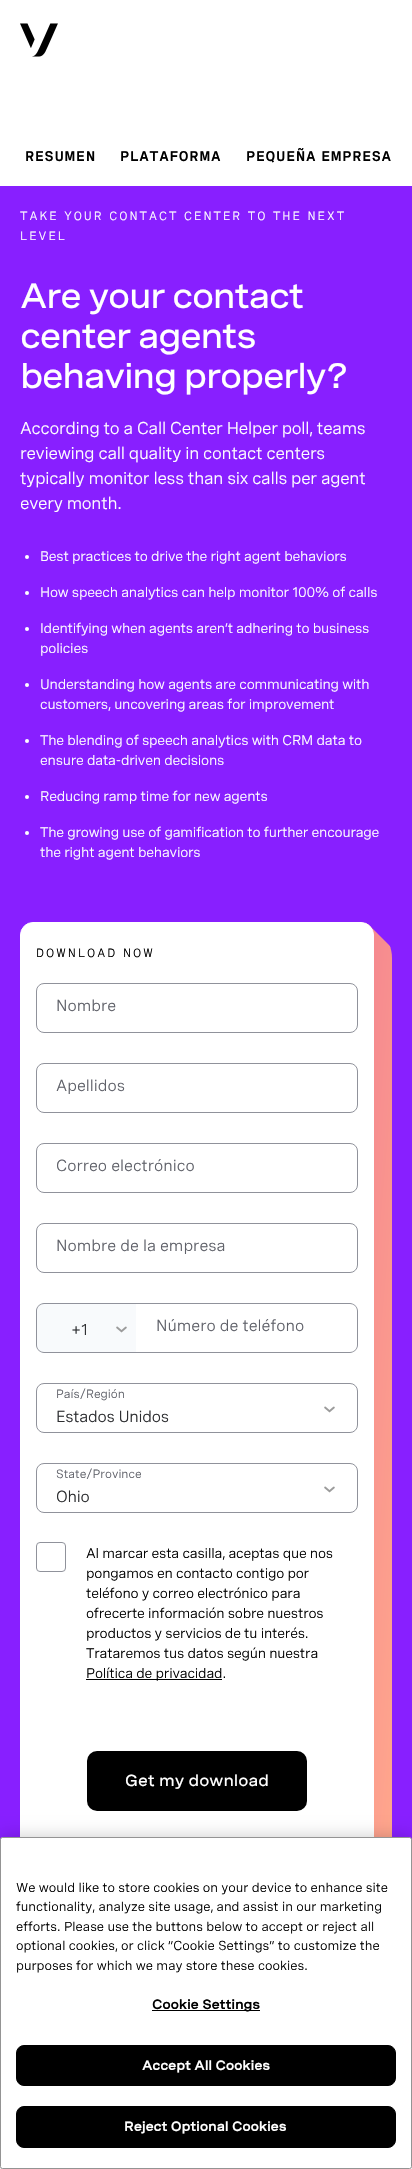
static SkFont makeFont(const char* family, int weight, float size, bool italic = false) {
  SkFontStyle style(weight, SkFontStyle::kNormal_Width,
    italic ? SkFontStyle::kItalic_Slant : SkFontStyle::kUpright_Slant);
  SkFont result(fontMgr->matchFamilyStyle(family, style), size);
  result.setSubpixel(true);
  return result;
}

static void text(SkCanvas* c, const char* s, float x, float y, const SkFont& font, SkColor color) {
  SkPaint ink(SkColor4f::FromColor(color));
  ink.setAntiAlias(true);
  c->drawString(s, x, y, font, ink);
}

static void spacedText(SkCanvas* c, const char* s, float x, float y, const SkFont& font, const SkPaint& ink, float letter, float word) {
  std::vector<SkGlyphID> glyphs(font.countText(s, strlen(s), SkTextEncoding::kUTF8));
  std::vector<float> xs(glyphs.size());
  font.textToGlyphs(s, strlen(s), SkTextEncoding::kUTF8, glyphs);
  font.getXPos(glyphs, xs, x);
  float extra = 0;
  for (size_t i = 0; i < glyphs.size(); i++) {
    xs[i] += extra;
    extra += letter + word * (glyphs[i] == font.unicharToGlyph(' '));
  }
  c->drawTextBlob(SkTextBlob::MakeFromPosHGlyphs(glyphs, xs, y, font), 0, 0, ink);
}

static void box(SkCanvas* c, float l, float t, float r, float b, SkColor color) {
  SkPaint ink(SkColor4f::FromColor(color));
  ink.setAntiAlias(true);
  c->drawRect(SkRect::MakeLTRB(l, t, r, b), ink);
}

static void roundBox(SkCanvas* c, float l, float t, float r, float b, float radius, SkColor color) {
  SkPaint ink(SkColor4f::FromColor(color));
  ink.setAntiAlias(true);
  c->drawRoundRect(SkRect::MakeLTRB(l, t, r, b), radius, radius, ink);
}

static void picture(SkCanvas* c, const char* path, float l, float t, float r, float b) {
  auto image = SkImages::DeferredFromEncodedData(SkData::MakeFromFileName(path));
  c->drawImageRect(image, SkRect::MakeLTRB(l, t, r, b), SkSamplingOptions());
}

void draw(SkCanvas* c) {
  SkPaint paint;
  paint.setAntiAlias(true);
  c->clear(0xffffffff);
  picture(c, "img_01.png", 20, 23, 58, 57);
  SkFont face1 = makeFont("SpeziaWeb", 600, 14);
  paint.setColor(0xff000000);
  spacedText(c, "RESUMEN", 25, 161, face1, paint, 0.75f, 0);
  spacedText(c, "PLATAFORMA", 120, 161, face1, paint, 0.75f, 0);
  spacedText(c, "PEQUEÑA EMPRESA", 246, 161, face1, paint, 0.75f, 0);
  box(c, 0, 186, 412, 1840, 0xff881fff);
  SkFont face2 = makeFont("SpeziaWeb", 400, 12);
  paint.setColor(0xffffffff);
  spacedText(c, "TAKE YOUR CONTACT CENTER TO THE NEXT", 20, 220, face2, paint, 2, 0);
  spacedText(c, "LEVEL", 20, 240, face2, paint, 2, 0);
  SkFont face3 = makeFont("SpeziaWeb", 500, 35);
  spacedText(c, "Are your contact", 20, 308, face3, paint, -1.25f, 0);
  spacedText(c, "center agents", 20, 348, face3, paint, -1.25f, 0);
  spacedText(c, "behaving properly?", 20, 388, face3, paint, -1.25f, 0);
  SkFont face4 = makeFont("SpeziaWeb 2", 400, 17);
  spacedText(c, "According to a Call Center Helper poll, teams", 20, 434, face4, paint, -0.25f, 0);
  spacedText(c, "reviewing call quality in contact centers", 20, 459, face4, paint, -0.25f, 0);
  spacedText(c, "typically monitor less than six calls per agent", 20, 484, face4, paint, -0.25f, 0);
  spacedText(c, "every month.", 20, 509, face4, paint, -0.25f, 0);
  c->drawCircle(27, 557, 2, paint);
  SkFont face5 = makeFont("SpeziaWeb 2", 400, 14);
  spacedText(c, "Best practices to drive the right agent behaviors", 40, 561, face5, paint, -0.2f, 0);
  c->drawCircle(27, 593, 2, paint);
  spacedText(c, "How speech analytics can help monitor 100% of calls", 40, 597, face5, paint, -0.2f, 0);
  c->drawCircle(27, 629, 2, paint);
  spacedText(c, "Identifying when agents aren’t adhering to business", 40, 633, face5, paint, -0.2f, 0);
  spacedText(c, "policies", 40, 653, face5, paint, -0.2f, 0);
  c->drawCircle(27, 685, 2, paint);
  spacedText(c, "Understanding how agents are communicating with", 40, 689, face5, paint, -0.2f, 0);
  spacedText(c, "customers, uncovering areas for improvement", 40, 709, face5, paint, -0.2f, 0);
  c->drawCircle(27, 741, 2, paint);
  spacedText(c, "The blending of speech analytics with CRM data to", 40, 745, face5, paint, -0.2f, 0);
  spacedText(c, "ensure data-driven decisions", 40, 765, face5, paint, -0.2f, 0);
  c->drawCircle(27, 797, 2, paint);
  spacedText(c, "Reducing ramp time for new agents", 40, 801, face5, paint, -0.2f, 0);
  c->drawCircle(27, 833, 2, paint);
  spacedText(c, "The growing use of gamification to further encourage", 40, 837, face5, paint, -0.2f, 0);
  spacedText(c, "the right agent behaviors", 40, 857, face5, paint, -0.2f, 0);
  {
    const SkColor colors[] = {0xffffa78c, 0xffd41f9c};
    const float stops[] = {0, 1};
    const SkPoint ends[] = {{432, 1416}, {-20, 1376}};
    paint.setShader(SkGradientShader::MakeLinear(ends, colors, stops, 2, SkTileMode::kClamp));
    paint.setAlpha(255);
  }
  c->drawPath(SkPathBuilder().moveTo(42, 922).lineTo(356, 922).cubicTo(376, 922, 392, 938, 392, 958).lineTo(392, 1844).cubicTo(392, 1858.5f, 380.5f, 1870, 366, 1870).lineTo(56, 1870).cubicTo(36, 1870, 20, 1854, 20, 1834).lineTo(20, 944).cubicTo(20, 932, 30, 922, 42, 922).close().detach(), paint);
  paint.setShader(nullptr);
  paint.setColor(0xff881fff);
  c->drawPath(SkPathBuilder().moveTo(366, 922).lineTo(394, 922).lineTo(394, 950).close().detach(), paint);
  paint.setColor(0xffffffff);
  c->drawRoundRect(SkRect::MakeLTRB(20.5f, 922.5f, 373.5f, 1851.5f), 12.5f, 12.5f, paint);
  paint.setStyle(SkPaint::kStroke_Style);
  paint.setStrokeWidth(1);
  c->drawRoundRect(SkRect::MakeLTRB(20.5f, 922.5f, 373.5f, 1851.5f), 12.5f, 12.5f, paint);
  paint.setStyle(SkPaint::kFill_Style);
  paint.setColor(0xff000000);
  spacedText(c, "DOWNLOAD NOW", 36, 957, face2, paint, 2, 0);
  paint.setStyle(SkPaint::kStroke_Style);
  paint.setColor(0xff90929b);
  c->drawRoundRect(SkRect::MakeLTRB(36.5f, 983.5f, 357.5f, 1032.5f), 7.5f, 7.5f, paint);
  SkFont face6 = makeFont("SpeziaWeb 2", 400, 16);
  text(c, "Nombre", 56, 1011, face6, 0xff5f6169);
  c->drawRoundRect(SkRect::MakeLTRB(36.5f, 1063.5f, 357.5f, 1112.5f), 7.5f, 7.5f, paint);
  text(c, "Apellidos", 56, 1091, face6, 0xff5f6169);
  c->drawRoundRect(SkRect::MakeLTRB(36.5f, 1143.5f, 357.5f, 1192.5f), 7.5f, 7.5f, paint);
  text(c, "Correo electrónico", 56, 1171, face6, 0xff5f6169);
  c->drawRoundRect(SkRect::MakeLTRB(36.5f, 1223.5f, 357.5f, 1272.5f), 7.5f, 7.5f, paint);
  text(c, "Nombre de la empresa", 56, 1251, face6, 0xff5f6169);
  paint.setStyle(SkPaint::kFill_Style);
  paint.setColor(0xfff8fafc);
  c->drawPath(SkPathBuilder().moveTo(44, 1303).lineTo(136, 1303).lineTo(136, 1353).lineTo(44, 1353).cubicTo(39.5f, 1353, 36, 1349.5f, 36, 1345).lineTo(36, 1311).cubicTo(36, 1306.5f, 39.5f, 1303, 44, 1303).close().detach(), paint);
  paint.setColor(0xff90929b);
  c->drawPath(SkPathBuilder(SkPathFillType::kEvenOdd).moveTo(44, 1303).lineTo(136, 1303).lineTo(136, 1353).lineTo(44, 1353).cubicTo(40, 1353, 36, 1349, 36, 1345).lineTo(36, 1311).cubicTo(36, 1307, 40, 1303, 44, 1303).close().moveTo(44, 1304).lineTo(136, 1304).lineTo(136, 1352).lineTo(44, 1352).cubicTo(40, 1352, 37, 1349, 37, 1345).lineTo(37, 1311).cubicTo(37, 1307, 40, 1304, 44, 1304).close().detach(), paint);
  paint.setColor(0xff2c2d30);
  spacedText(c, "+1", 71, 1335, face6, paint, -0.25f, 0);
  picture(c, "img_02.png", 116, 1326, 127, 1333);
  paint.setColor(0xff90929b);
  c->drawPath(SkPathBuilder(SkPathFillType::kEvenOdd).moveTo(136, 1303).lineTo(350, 1303).cubicTo(354, 1303, 358, 1307, 358, 1311).lineTo(358, 1345).cubicTo(358, 1349, 354, 1353, 350, 1353).lineTo(136, 1353).close().moveTo(136, 1304).lineTo(350, 1304).cubicTo(354, 1304, 357, 1307, 357, 1311).lineTo(357, 1345).cubicTo(357, 1349, 354, 1352, 350, 1352).lineTo(136, 1352).close().detach(), paint);
  text(c, "Número de teléfono", 156, 1331, face6, 0xff5f6169);
  paint.setStyle(SkPaint::kStroke_Style);
  c->drawRoundRect(SkRect::MakeLTRB(36.5f, 1383.5f, 357.5f, 1432.5f), 7.5f, 7.5f, paint);
  SkFont face7 = makeFont("SpeziaWeb 2", 400, 12);
  text(c, "País/Región", 56, 1398, face7, 0xff5f6169);
  paint.setStyle(SkPaint::kFill_Style);
  paint.setColor(0xff2c2d30);
  spacedText(c, "Estados Unidos", 56, 1422, face6, paint, -0.25f, 0);
  picture(c, "img_03.png", 324, 1406, 335, 1413);
  paint.setStyle(SkPaint::kStroke_Style);
  paint.setColor(0xff90929b);
  c->drawRoundRect(SkRect::MakeLTRB(36.5f, 1463.5f, 357.5f, 1512.5f), 7.5f, 7.5f, paint);
  text(c, "State/Province", 56, 1478, face7, 0xff5f6169);
  paint.setStyle(SkPaint::kFill_Style);
  paint.setColor(0xff2c2d30);
  spacedText(c, "Ohio", 56, 1502, face6, paint, -0.25f, 0);
  picture(c, "img_03.png", 324, 1486, 335, 1493);
  paint.setStyle(SkPaint::kStroke_Style);
  paint.setColor(0xff90929b);
  c->drawRoundRect(SkRect::MakeLTRB(36.5f, 1542.5f, 65.5f, 1571.5f), 3.5f, 3.5f, paint);
  paint.setStyle(SkPaint::kFill_Style);
  paint.setColor(0xff000000);
  spacedText(c, "Al marcar esta casilla, aceptas que nos", 86, 1558, face5, paint, -0.2f, 0);
  spacedText(c, "pongamos en contacto contigo por", 86, 1578, face5, paint, -0.2f, 0);
  spacedText(c, "teléfono y correo electrónico para", 86, 1598, face5, paint, -0.2f, 0);
  spacedText(c, "ofrecerte información sobre nuestros", 86, 1618, face5, paint, -0.2f, 0);
  spacedText(c, "productos y servicios de tu interés.", 86, 1638, face5, paint, -0.2f, 0);
  spacedText(c, "Trataremos tus datos según nuestra", 86, 1658, face5, paint, -0.2f, 0);
  box(c, 86, 1679, 222, 1680, 0xff000000);
  spacedText(c, "Política de privacidad.", 86, 1678, face5, paint, -0.2f, 0);
  roundBox(c, 87, 1751, 307, 1811, 10, 0xff000000);
  SkFont face8 = makeFont("SpeziaWeb", 500, 16);
  text(c, "Get my download", 125, 1786, face8, 0xffffffff);
  paint.setColor(0x33000000);
  paint.setMaskFilter(SkMaskFilter::MakeBlur(kNormal_SkBlurStyle, 9));
  c->drawRoundRect(SkRect::MakeLTRB(0, 1837, 412, 2169), 2.5f, 2.5f, paint);
  paint.setMaskFilter(nullptr);
  paint.setColor(0xffffffff);
  c->drawRoundRect(SkRect::MakeLTRB(0.5f, 1837.5f, 411.5f, 2168.5f), 2, 2, paint);
  paint.setStyle(SkPaint::kStroke_Style);
  paint.setColor(0xff949494);
  c->drawRoundRect(SkRect::MakeLTRB(0.5f, 1837.5f, 411.5f, 2168.5f), 2, 2, paint);
  SkFont face9 = makeFont("SpeziaWeb 2", 400, 13);
  text(c, "We would like to store cookies on your device to enhance site", 16, 1892, face9, 0xff000000);
  text(c, "functionality, analyze site usage, and assist in our marketing", 16, 1911, face9, 0xff000000);
  text(c, "efforts. Please use the buttons below to accept or reject all", 16, 1931, face9, 0xff000000);
  text(c, "optional cookies, or click “Cookie Settings” to customize the", 16, 1950, face9, 0xff000000);
  text(c, "purposes for which we may store these cookies.", 16, 1970, face9, 0xff000000);
  box(c, 152, 2010, 260, 2011, 0xff000000);
  SkFont face10 = makeFont("SpeziaWeb", 700, 13);
  paint.setStyle(SkPaint::kFill_Style);
  paint.setColor(0xff000000);
  spacedText(c, "Cookie Settings", 152, 2009, face10, paint, 0.1f, 0);
  c->drawRoundRect(SkRect::MakeLTRB(16.5f, 2045.5f, 395.5f, 2085.5f), 7.5f, 7.5f, paint);
  paint.setStyle(SkPaint::kStroke_Style);
  c->drawRoundRect(SkRect::MakeLTRB(16.5f, 2045.5f, 395.5f, 2085.5f), 7.5f, 7.5f, paint);
  paint.setStyle(SkPaint::kFill_Style);
  paint.setColor(0xffffffff);
  spacedText(c, "Accept All Cookies", 142, 2070, face10, paint, 0.1f, 0);
  paint.setColor(0xff000000);
  c->drawRoundRect(SkRect::MakeLTRB(16.5f, 2106.5f, 395.5f, 2147.5f), 7.5f, 7.5f, paint);
  paint.setStyle(SkPaint::kStroke_Style);
  c->drawRoundRect(SkRect::MakeLTRB(16.5f, 2106.5f, 395.5f, 2147.5f), 7.5f, 7.5f, paint);
  paint.setStyle(SkPaint::kFill_Style);
  paint.setColor(0xffffffff);
  spacedText(c, "Reject Optional Cookies", 124, 2131, face10, paint, 0.1f, 0);
}
